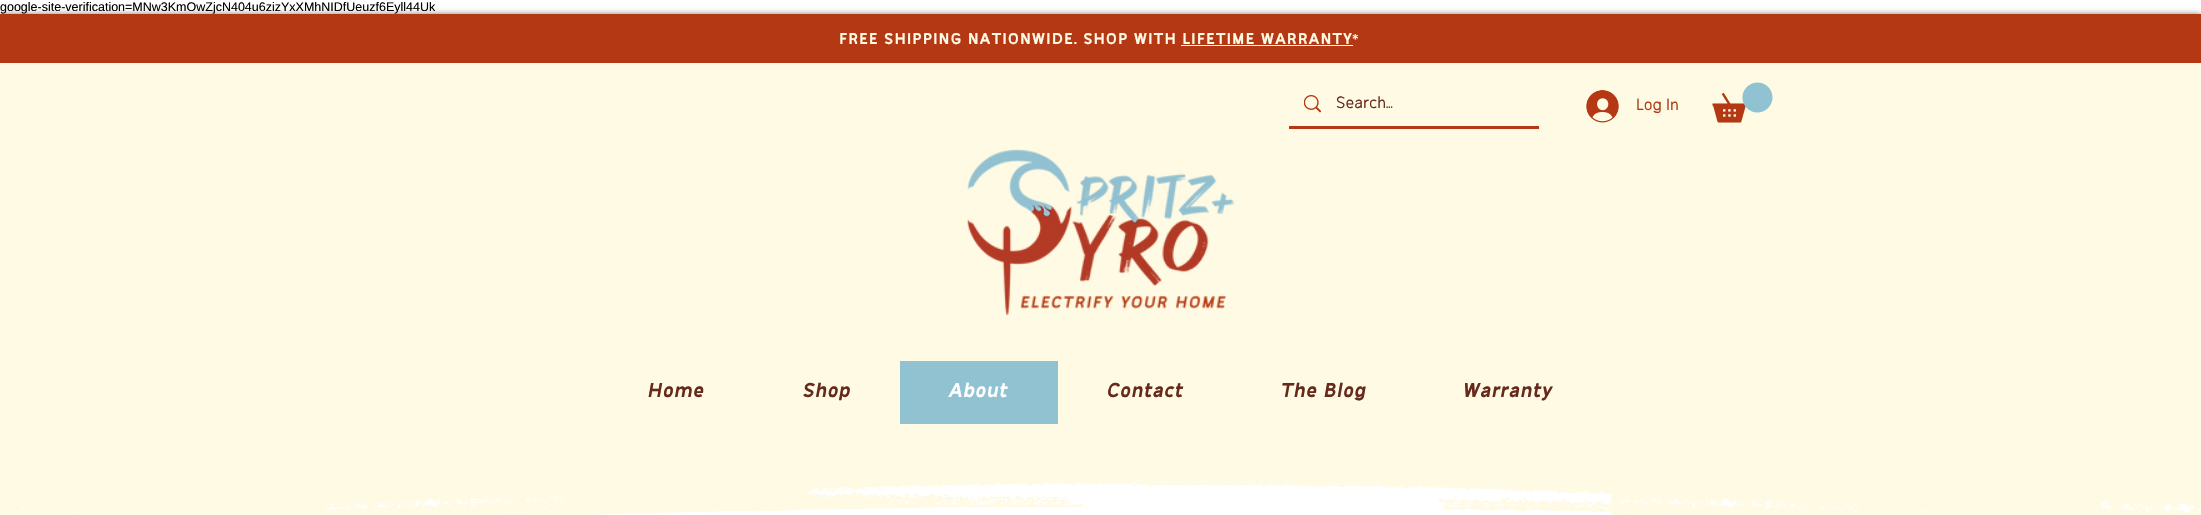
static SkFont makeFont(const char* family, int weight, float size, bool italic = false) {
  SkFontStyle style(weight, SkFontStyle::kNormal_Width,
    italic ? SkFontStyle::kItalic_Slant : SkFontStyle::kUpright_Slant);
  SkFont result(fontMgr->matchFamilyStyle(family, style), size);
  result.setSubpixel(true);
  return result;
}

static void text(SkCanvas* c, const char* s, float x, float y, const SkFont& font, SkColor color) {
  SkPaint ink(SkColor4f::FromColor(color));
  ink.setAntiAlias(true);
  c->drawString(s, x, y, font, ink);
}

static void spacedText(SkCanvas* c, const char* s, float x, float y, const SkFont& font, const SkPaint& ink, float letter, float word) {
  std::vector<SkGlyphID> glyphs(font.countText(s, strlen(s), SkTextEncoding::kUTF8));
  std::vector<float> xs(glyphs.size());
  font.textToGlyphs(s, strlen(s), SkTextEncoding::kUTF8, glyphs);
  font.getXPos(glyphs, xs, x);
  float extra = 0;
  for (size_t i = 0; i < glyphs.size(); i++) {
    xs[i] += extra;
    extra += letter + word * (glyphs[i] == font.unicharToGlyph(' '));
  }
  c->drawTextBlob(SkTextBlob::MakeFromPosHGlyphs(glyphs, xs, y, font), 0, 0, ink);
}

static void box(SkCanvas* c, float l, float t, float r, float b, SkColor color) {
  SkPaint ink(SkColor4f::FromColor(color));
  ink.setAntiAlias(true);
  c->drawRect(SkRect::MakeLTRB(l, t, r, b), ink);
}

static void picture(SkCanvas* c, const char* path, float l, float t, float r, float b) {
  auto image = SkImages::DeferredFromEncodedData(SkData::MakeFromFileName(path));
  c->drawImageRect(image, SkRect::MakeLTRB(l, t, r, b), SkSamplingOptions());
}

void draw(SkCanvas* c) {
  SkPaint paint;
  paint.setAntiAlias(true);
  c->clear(0xffffffff);
  SkFont face1 = makeFont("Liberation Sans", 400, 12.5f);
  text(c, "google-site-verification=MNw3KmOwZjcN404u6zizYxXMhNIDfUeuzf6Eyll44Uk", 0, 11, face1, 0xff000000);
  paint.setColor(0x80000000);
  paint.setMaskFilter(SkMaskFilter::MakeBlur(kNormal_SkBlurStyle, 3));
  c->drawRect(SkRect::MakeLTRB(0, 14, 2201, 424), paint);
  paint.setMaskFilter(nullptr);
  box(c, 0, 63, 2201, 424, 0xfffffae4);
  box(c, 0, 14, 2201, 63, 0xffb33813);
  SkFont face2 = makeFont("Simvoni", 700, 17.5f);
  paint.setColor(0xfffffae4);
  spacedText(c, "FREE SHIPPING NATIONWIDE. SHOP WITH LIFETIME WARRANTY", 839, 44, face2, paint, 0.88f, 0);
  box(c, 1181, 45, 1353, 46, 0xfffffae4);
  SkFont face3 = makeFont("Simvoni", 400, 15);
  spacedText(c, "*", 1352, 44, face3, paint, 0.88f, 0);
  box(c, 1289, 126, 1539, 129, 0xffb33813);
  picture(c, "img_01.png", 1304, 95, 1321, 113);
  SkFont face4 = makeFont("Simvoni", 400, 17.5f);
  text(c, "Search...", 1336, 108, face4, 0xff662a1d);
  picture(c, "img_02.png", 1586, 90, 1619, 123);
  text(c, "Log In", 1636, 110, face4, 0xffb33813);
  picture(c, "img_03.png", 1712, 82, 1773, 123);
  picture(c, "img_04.png", 967, 149, 1235, 316);
  SkFont face5 = makeFont("Simvoni", 700, 22.5f, true);
  text(c, "Home", 648, 397, face5, 0xff662a1d);
  text(c, "Shop", 803, 397, face5, 0xff662a1d);
  box(c, 900, 361, 1058, 424, 0xff91c2d2);
  text(c, "About", 949, 397, face5, 0xffffffff);
  text(c, "Contact", 1107, 397, face5, 0xff662a1d);
  text(c, "The Blog", 1281, 397, face5, 0xff662a1d);
  text(c, "Warranty", 1463, 397, face5, 0xff662a1d);
  picture(c, "img_05.png", 0, 424, 2201, 515);
}
